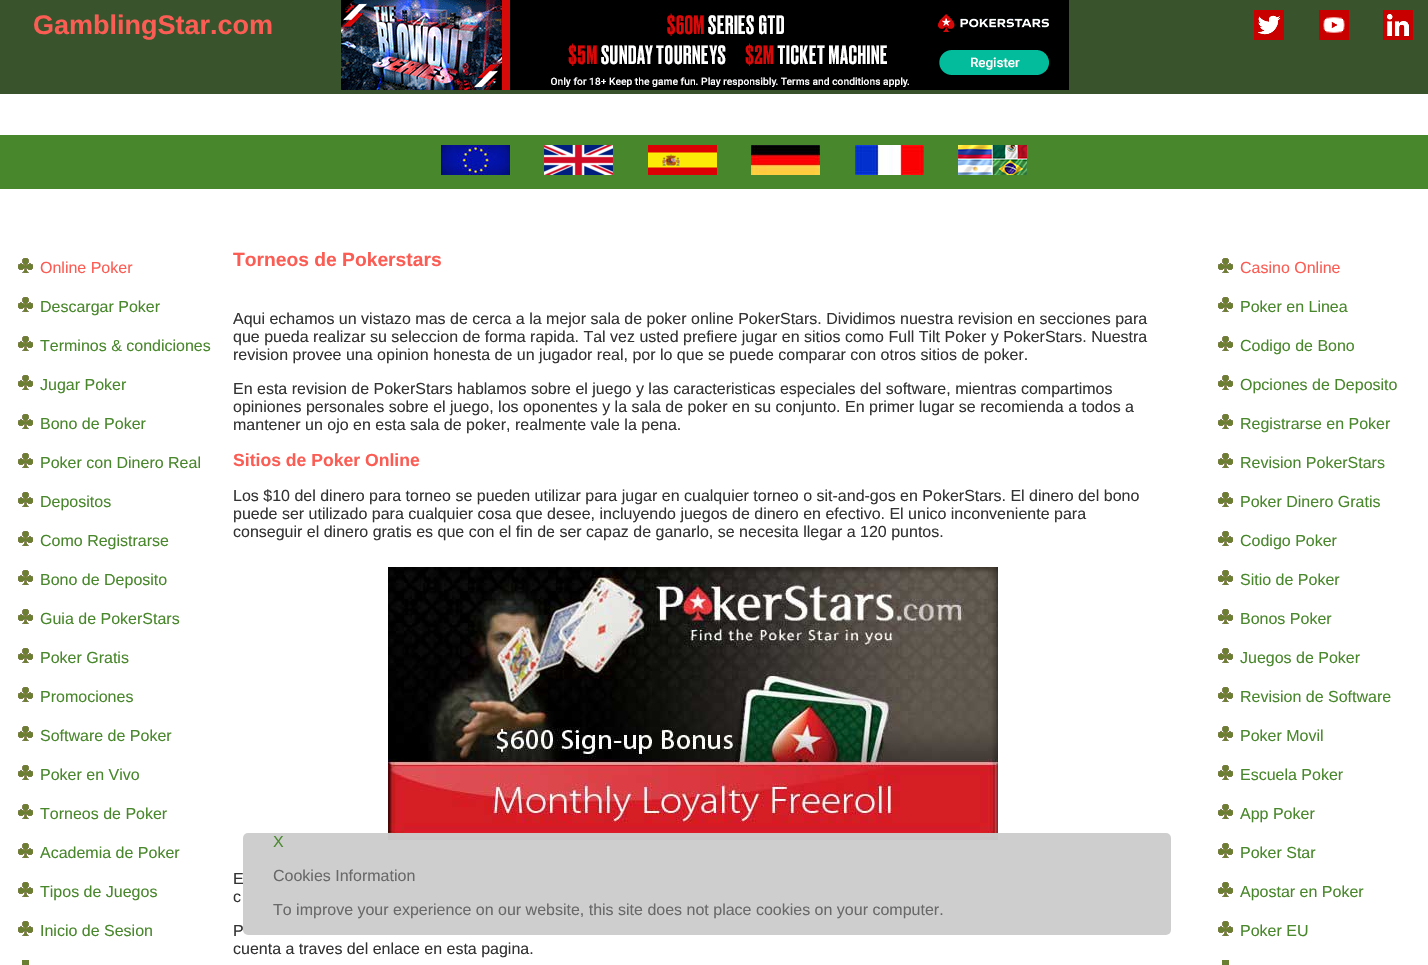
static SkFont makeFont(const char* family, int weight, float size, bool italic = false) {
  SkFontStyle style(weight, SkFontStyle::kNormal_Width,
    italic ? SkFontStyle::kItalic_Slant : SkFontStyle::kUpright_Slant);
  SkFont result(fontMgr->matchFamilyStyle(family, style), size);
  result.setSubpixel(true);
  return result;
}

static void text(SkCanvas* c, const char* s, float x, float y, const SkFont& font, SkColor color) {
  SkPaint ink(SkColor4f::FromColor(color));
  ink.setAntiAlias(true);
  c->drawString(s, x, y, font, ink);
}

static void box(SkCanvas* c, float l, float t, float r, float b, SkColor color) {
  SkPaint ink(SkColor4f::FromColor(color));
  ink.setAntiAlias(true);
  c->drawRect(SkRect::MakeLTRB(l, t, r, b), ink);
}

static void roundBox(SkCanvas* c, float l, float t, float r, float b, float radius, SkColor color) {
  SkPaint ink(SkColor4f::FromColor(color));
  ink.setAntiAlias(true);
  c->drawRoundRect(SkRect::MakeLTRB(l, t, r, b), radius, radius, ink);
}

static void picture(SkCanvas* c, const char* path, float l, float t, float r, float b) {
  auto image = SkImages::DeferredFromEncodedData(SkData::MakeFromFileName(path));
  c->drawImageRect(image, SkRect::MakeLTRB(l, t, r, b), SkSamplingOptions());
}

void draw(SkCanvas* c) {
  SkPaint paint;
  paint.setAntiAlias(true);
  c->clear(0xffffffff);
  box(c, 0, 0, 1428, 94, 0xff39542c);
  SkFont face1 = makeFont("Liberation Sans", 700, 27);
  text(c, "GamblingStar.com", 33, 34, face1, 0xfffb5d54);
  picture(c, "img_01.png", 341, 0, 1069, 90);
  picture(c, "img_02.png", 1254, 10, 1284, 40);
  picture(c, "img_03.png", 1319, 10, 1349, 40);
  picture(c, "img_04.png", 1383, 10, 1413, 40);
  box(c, 0, 135, 1428, 189, 0xff48872b);
  picture(c, "img_05.png", 441, 145, 510, 175);
  picture(c, "img_06.png", 544, 145, 613, 175);
  picture(c, "img_07.png", 648, 145, 717, 175);
  picture(c, "img_08.png", 751, 145, 820, 175);
  picture(c, "img_09.png", 855, 145, 924, 175);
  picture(c, "img_10.png", 958, 145, 1027, 175);
  picture(c, "img_11.png", 18, 258, 33, 273);
  SkFont face2 = makeFont("Liberation Sans", 400, 16);
  text(c, "Online Poker", 40, 273, face2, 0xfffb5d54);
  picture(c, "img_11.png", 18, 297, 33, 312);
  text(c, "Descargar Poker", 40, 312, face2, 0xff48872b);
  picture(c, "img_11.png", 18, 336, 33, 351);
  text(c, "Terminos & condiciones", 40, 351, face2, 0xff48872b);
  picture(c, "img_11.png", 18, 375, 33, 390);
  text(c, "Jugar Poker", 40, 390, face2, 0xff48872b);
  picture(c, "img_11.png", 18, 414, 33, 429);
  text(c, "Bono de Poker", 40, 429, face2, 0xff48872b);
  picture(c, "img_11.png", 18, 453, 33, 468);
  text(c, "Poker con Dinero Real", 40, 468, face2, 0xff48872b);
  picture(c, "img_11.png", 18, 492, 33, 507);
  text(c, "Depositos", 40, 507, face2, 0xff48872b);
  picture(c, "img_11.png", 18, 531, 33, 546);
  text(c, "Como Registrarse", 40, 546, face2, 0xff48872b);
  picture(c, "img_11.png", 18, 570, 33, 585);
  text(c, "Bono de Deposito", 40, 585, face2, 0xff48872b);
  picture(c, "img_11.png", 18, 609, 33, 624);
  text(c, "Guia de PokerStars", 40, 624, face2, 0xff48872b);
  picture(c, "img_11.png", 18, 648, 33, 663);
  text(c, "Poker Gratis", 40, 663, face2, 0xff48872b);
  picture(c, "img_11.png", 18, 687, 33, 702);
  text(c, "Promociones", 40, 702, face2, 0xff48872b);
  picture(c, "img_11.png", 18, 726, 33, 741);
  text(c, "Software de Poker", 40, 741, face2, 0xff48872b);
  picture(c, "img_11.png", 18, 765, 33, 780);
  text(c, "Poker en Vivo", 40, 780, face2, 0xff48872b);
  picture(c, "img_11.png", 18, 804, 33, 819);
  text(c, "Torneos de Poker", 40, 819, face2, 0xff48872b);
  picture(c, "img_11.png", 18, 843, 33, 858);
  text(c, "Academia de Poker", 40, 858, face2, 0xff48872b);
  picture(c, "img_11.png", 18, 882, 33, 897);
  text(c, "Tipos de Juegos", 40, 897, face2, 0xff48872b);
  picture(c, "img_11.png", 18, 921, 33, 936);
  text(c, "Inicio de Sesion", 40, 936, face2, 0xff48872b);
  box(c, 22, 960, 29, 965, 0xff6a7f31);
  SkFont face3 = makeFont("Liberation Sans", 700, 19.25f);
  text(c, "Torneos de Pokerstars", 233, 266, face3, 0xfffb5d54);
  text(c, "Aqui echamos un vistazo mas de cerca a la mejor sala de poker online PokerStars. Dividimos nuestra revision en secciones para", 233, 324, face2, 0xff333333);
  text(c, "que pueda realizar su seleccion de forma rapida. Tal vez usted prefiere jugar en sitios como Full Tilt Poker y PokerStars. Nuestra", 233, 342, face2, 0xff333333);
  text(c, "revision provee una opinion honesta de un jugador real, por lo que se puede comparar con otros sitios de poker.", 233, 360, face2, 0xff333333);
  text(c, "En esta revision de PokerStars hablamos sobre el juego y las caracteristicas especiales del software, mientras compartimos", 233, 394, face2, 0xff333333);
  text(c, "opiniones personales sobre el juego, los oponentes y la sala de poker en su conjunto. En primer lugar se recomienda a todos a", 233, 412, face2, 0xff333333);
  text(c, "mantener un ojo en esta sala de poker, realmente vale la pena.", 233, 430, face2, 0xff333333);
  SkFont face4 = makeFont("Liberation Sans", 700, 17.6f);
  text(c, "Sitios de Poker Online", 233, 466, face4, 0xfffb5d54);
  text(c, "Los $10 del dinero para torneo se pueden utilizar para jugar en cualquier torneo o sit-and-gos en PokerStars. El dinero del bono", 233, 501, face2, 0xff333333);
  text(c, "puede ser utilizado para cualquier cosa que desee, incluyendo juegos de dinero en efectivo. El unico inconveniente para", 233, 519, face2, 0xff333333);
  text(c, "conseguir el dinero gratis es que con el fin de ser capaz de ganarlo, se necesita llegar a 120 puntos.", 233, 537, face2, 0xff333333);
  picture(c, "img_12.png", 388, 567, 998, 840);
  text(c, "E", 233, 884, face2, 0xff333333);
  text(c, "c", 233, 902, face2, 0xff333333);
  text(c, "P", 233, 936, face2, 0xff333333);
  text(c, "cuenta a traves del enlace en esta pagina.", 233, 954, face2, 0xff333333);
  picture(c, "img_11.png", 1218, 258, 1233, 273);
  text(c, "Casino Online", 1240, 273, face2, 0xfffb5d54);
  picture(c, "img_11.png", 1218, 297, 1233, 312);
  text(c, "Poker en Linea", 1240, 312, face2, 0xff48872b);
  picture(c, "img_11.png", 1218, 336, 1233, 351);
  text(c, "Codigo de Bono", 1240, 351, face2, 0xff48872b);
  picture(c, "img_11.png", 1218, 375, 1233, 390);
  text(c, "Opciones de Deposito", 1240, 390, face2, 0xff48872b);
  picture(c, "img_11.png", 1218, 414, 1233, 429);
  text(c, "Registrarse en Poker", 1240, 429, face2, 0xff48872b);
  picture(c, "img_11.png", 1218, 453, 1233, 468);
  text(c, "Revision PokerStars", 1240, 468, face2, 0xff48872b);
  picture(c, "img_11.png", 1218, 492, 1233, 507);
  text(c, "Poker Dinero Gratis", 1240, 507, face2, 0xff48872b);
  picture(c, "img_11.png", 1218, 531, 1233, 546);
  text(c, "Codigo Poker", 1240, 546, face2, 0xff48872b);
  picture(c, "img_11.png", 1218, 570, 1233, 585);
  text(c, "Sitio de Poker", 1240, 585, face2, 0xff48872b);
  picture(c, "img_11.png", 1218, 609, 1233, 624);
  text(c, "Bonos Poker", 1240, 624, face2, 0xff48872b);
  picture(c, "img_11.png", 1218, 648, 1233, 663);
  text(c, "Juegos de Poker", 1240, 663, face2, 0xff48872b);
  picture(c, "img_11.png", 1218, 687, 1233, 702);
  text(c, "Revision de Software", 1240, 702, face2, 0xff48872b);
  picture(c, "img_11.png", 1218, 726, 1233, 741);
  text(c, "Poker Movil", 1240, 741, face2, 0xff48872b);
  picture(c, "img_11.png", 1218, 765, 1233, 780);
  text(c, "Escuela Poker", 1240, 780, face2, 0xff48872b);
  picture(c, "img_11.png", 1218, 804, 1233, 819);
  text(c, "App Poker", 1240, 819, face2, 0xff48872b);
  picture(c, "img_11.png", 1218, 843, 1233, 858);
  text(c, "Poker Star", 1240, 858, face2, 0xff48872b);
  picture(c, "img_11.png", 1218, 882, 1233, 897);
  text(c, "Apostar en Poker", 1240, 897, face2, 0xff48872b);
  picture(c, "img_11.png", 1218, 921, 1233, 936);
  text(c, "Poker EU", 1240, 936, face2, 0xff48872b);
  box(c, 1222, 960, 1229, 965, 0xff6a7f31);
  roundBox(c, 243, 833, 1171, 935, 5, 0xf7cccccc);
  text(c, "X", 273, 847, face2, 0xff4d8b31);
  text(c, "Cookies Information", 273, 881, face2, 0xff696969);
  text(c, "To improve your experience on our website, this site does not place cookies on your computer.", 273, 915, face2, 0xff696969);
}
